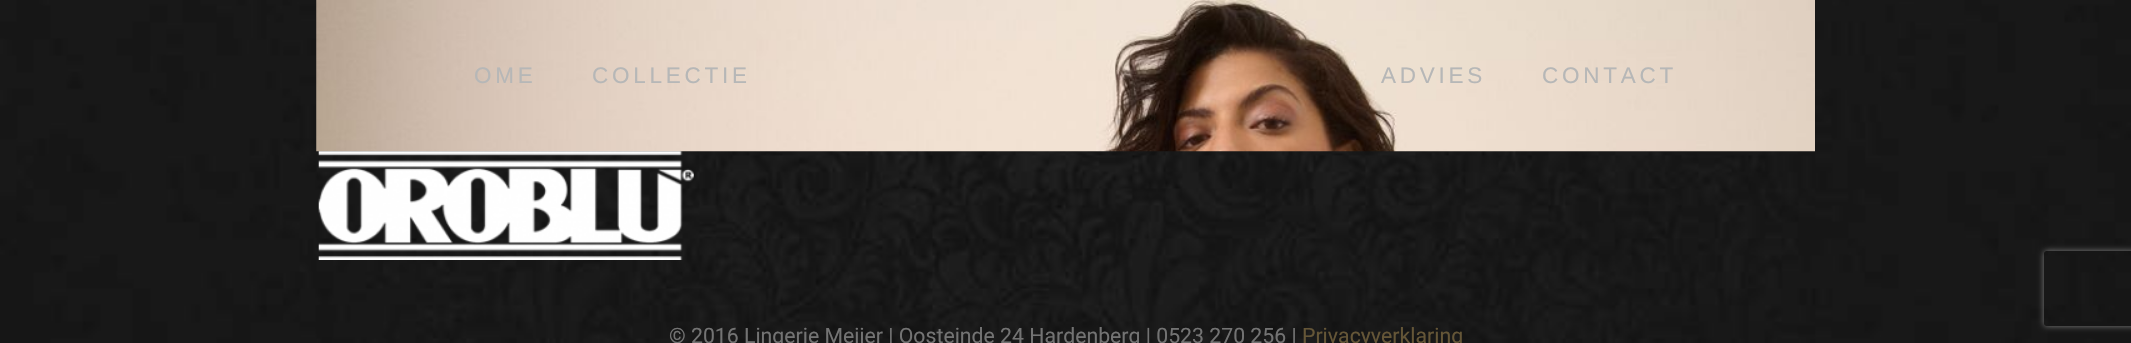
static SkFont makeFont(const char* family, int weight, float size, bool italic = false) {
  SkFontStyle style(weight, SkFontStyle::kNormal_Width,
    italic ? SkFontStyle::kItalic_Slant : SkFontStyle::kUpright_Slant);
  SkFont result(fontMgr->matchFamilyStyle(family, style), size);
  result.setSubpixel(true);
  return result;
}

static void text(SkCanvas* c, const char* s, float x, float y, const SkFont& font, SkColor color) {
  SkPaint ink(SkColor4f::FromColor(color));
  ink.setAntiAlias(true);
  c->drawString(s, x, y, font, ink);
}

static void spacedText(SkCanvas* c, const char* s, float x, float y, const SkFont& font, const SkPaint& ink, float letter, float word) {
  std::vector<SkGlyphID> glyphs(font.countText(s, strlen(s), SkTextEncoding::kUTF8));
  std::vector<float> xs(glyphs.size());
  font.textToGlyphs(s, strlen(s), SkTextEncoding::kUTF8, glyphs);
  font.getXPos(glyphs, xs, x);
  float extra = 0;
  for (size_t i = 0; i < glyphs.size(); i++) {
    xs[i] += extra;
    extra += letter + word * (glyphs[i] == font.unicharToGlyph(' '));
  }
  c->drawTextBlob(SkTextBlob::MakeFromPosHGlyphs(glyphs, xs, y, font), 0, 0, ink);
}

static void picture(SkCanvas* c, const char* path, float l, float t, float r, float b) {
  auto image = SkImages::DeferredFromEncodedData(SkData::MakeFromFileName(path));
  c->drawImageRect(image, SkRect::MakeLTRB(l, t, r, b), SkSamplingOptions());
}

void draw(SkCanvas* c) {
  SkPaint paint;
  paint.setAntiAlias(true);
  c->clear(0xffffffff);
  picture(c, "img_01.png", 0, 0, 2131, 343);
  picture(c, "img_02.png", 316, 0, 1815, 152);
  SkFont face1 = makeFont("Liberation Sans", 400, 22.5f);
  paint.setColor(0xffb6b7b7);
  spacedText(c, "OME", 474, 83, face1, paint, 3.75f, 0);
  spacedText(c, "COLLECTIE", 592, 83, face1, paint, 3.75f, 0);
  spacedText(c, "ADVIES", 1381, 83, face1, paint, 3.75f, 0);
  spacedText(c, "CONTACT", 1542, 83, face1, paint, 3.75f, 0);
  picture(c, "img_03.png", 318, 151, 694, 260);
  SkFont face2 = makeFont("Roboto", 400, 21.25f);
  text(c, "© 2016 Lingerie Meijer | Oosteinde 24 Hardenberg | 0523 270 256 |", 669, 343, face2, 0xff737373);
  text(c, "Privacyverklaring", 1302, 343, face2, 0xff655637);
  c->save();
  c->clipPath(SkPathBuilder(SkPathFillType::kEvenOdd).moveTo(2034, 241).lineTo(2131, 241).lineTo(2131, 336).lineTo(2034, 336).close().moveTo(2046.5f, 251).lineTo(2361.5f, 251).cubicTo(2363, 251, 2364, 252, 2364, 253.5f).lineTo(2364, 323.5f).cubicTo(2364, 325, 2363, 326, 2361.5f, 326).lineTo(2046.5f, 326).cubicTo(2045, 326, 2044, 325, 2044, 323.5f).lineTo(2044, 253.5f).cubicTo(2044, 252, 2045, 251, 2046.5f, 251).close().detach(), true);
  paint.setColor(0xff808080);
  paint.setMaskFilter(SkMaskFilter::MakeBlur(kNormal_SkBlurStyle, 3));
  c->drawRoundRect(SkRect::MakeLTRB(2044, 251, 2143, 326), 2.5f, 2.5f, paint);
  paint.setMaskFilter(nullptr);
  c->restore();
}
